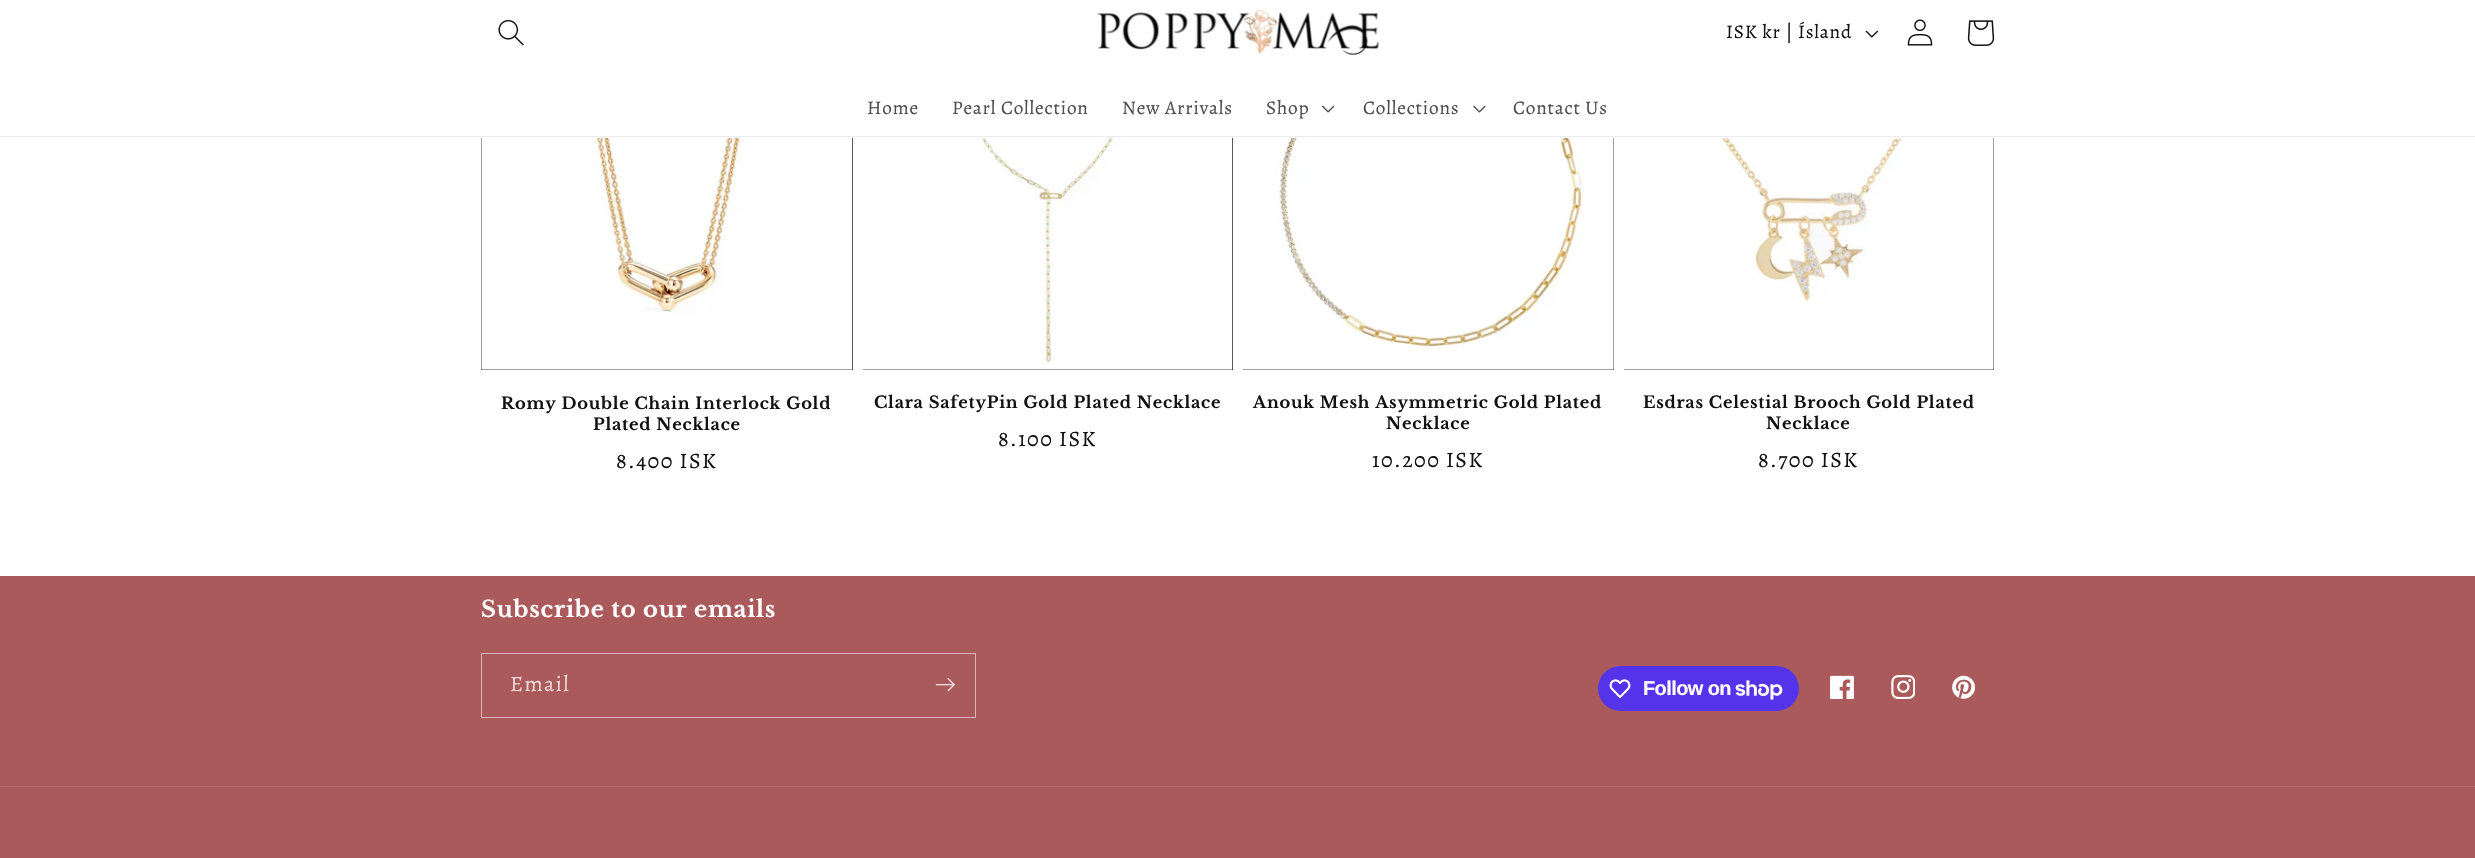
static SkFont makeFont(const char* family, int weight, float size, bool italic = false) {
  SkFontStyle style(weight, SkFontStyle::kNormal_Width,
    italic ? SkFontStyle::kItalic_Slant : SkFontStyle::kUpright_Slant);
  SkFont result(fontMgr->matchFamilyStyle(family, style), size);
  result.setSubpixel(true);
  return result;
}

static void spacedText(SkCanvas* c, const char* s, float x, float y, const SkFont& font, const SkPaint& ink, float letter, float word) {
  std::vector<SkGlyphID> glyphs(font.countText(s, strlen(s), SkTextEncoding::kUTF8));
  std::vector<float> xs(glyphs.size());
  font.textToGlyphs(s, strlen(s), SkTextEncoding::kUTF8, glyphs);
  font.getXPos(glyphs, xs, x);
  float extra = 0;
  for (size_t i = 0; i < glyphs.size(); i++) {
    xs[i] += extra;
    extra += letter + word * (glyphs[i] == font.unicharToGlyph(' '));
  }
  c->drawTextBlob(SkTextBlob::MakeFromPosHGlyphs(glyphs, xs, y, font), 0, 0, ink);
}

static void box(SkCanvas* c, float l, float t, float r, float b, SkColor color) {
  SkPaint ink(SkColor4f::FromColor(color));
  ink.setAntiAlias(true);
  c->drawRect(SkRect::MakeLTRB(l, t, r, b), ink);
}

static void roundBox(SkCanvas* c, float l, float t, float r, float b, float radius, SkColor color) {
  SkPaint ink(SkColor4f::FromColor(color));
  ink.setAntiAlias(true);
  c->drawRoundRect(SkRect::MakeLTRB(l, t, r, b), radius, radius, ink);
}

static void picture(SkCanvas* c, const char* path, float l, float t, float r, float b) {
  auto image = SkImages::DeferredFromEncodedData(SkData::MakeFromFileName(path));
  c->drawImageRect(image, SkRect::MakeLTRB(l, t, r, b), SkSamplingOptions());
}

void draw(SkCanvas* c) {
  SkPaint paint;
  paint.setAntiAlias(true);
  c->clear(0xffffffff);
  box(c, 0, 136, 2475, 137, 0xffececec);
  picture(c, "img_01.png", 498, 19, 524, 46);
  picture(c, "img_02.png", 1097, 9, 1379, 55);
  SkFont face1 = makeFont("Alegreya", 400, 19.25f);
  paint.setColor(0xff121212);
  spacedText(c, "ISK kr | Ísland", 1726, 38, face1, paint, 0.8f, 0);
  picture(c, "img_03.png", 1865, 30, 1878, 38);
  picture(c, "img_04.png", 1907, 19, 1933, 46);
  picture(c, "img_05.png", 1967, 20, 1995, 46);
  paint.setColor(0xff4d4d4d);
  spacedText(c, "Home", 867, 114, face1, paint, 0.8f, 0);
  spacedText(c, "Pearl Collection", 952, 114, face1, paint, 0.8f, 0);
  spacedText(c, "New Arrivals", 1122, 114, face1, paint, 0.8f, 0);
  spacedText(c, "Shop", 1266, 114, face1, paint, 0.8f, 0);
  picture(c, "img_06.png", 1322, 105, 1335, 113);
  spacedText(c, "Collections", 1363, 114, face1, paint, 0.8f, 0);
  picture(c, "img_07.png", 1473, 105, 1486, 113);
  spacedText(c, "Contact Us", 1513, 114, face1, paint, 0.8f, 0);
  box(c, 481, 138, 853, 370, 0xff241f1f);
  picture(c, "img_08.png", 481, 138, 853, 370);
  SkFont face2 = makeFont("Libre Baskerville", 700, 16.25f);
  paint.setColor(0xff121212);
  spacedText(c, "Romy Double Chain Interlock Gold", 501, 409, face2, paint, 0.75f, 0);
  spacedText(c, "Plated Necklace", 593, 430, face2, paint, 0.75f, 0);
  SkFont face3 = makeFont("Alegreya", 400, 22);
  spacedText(c, "8.400 ISK", 616, 468, face3, paint, 1.4f, 0);
  box(c, 863, 138, 1233, 370, 0xff241f1f);
  picture(c, "img_09.png", 863, 138, 1233, 370);
  spacedText(c, "Clara SafetyPin Gold Plated Necklace", 874, 408, face2, paint, 0.75f, 0);
  spacedText(c, "8.100 ISK", 998, 446, face3, paint, 1.4f, 0);
  box(c, 1243, 138, 1614, 370, 0xff241f1f);
  picture(c, "img_10.png", 1243, 138, 1614, 370);
  spacedText(c, "Anouk Mesh Asymmetric Gold Plated", 1253, 408, face2, paint, 0.75f, 0);
  spacedText(c, "Necklace", 1386, 429, face2, paint, 0.75f, 0);
  spacedText(c, "10.200 ISK", 1372, 467, face3, paint, 1.4f, 0);
  box(c, 1624, 138, 1994, 370, 0xff241f1f);
  picture(c, "img_11.png", 1624, 138, 1994, 370);
  spacedText(c, "Esdras Celestial Brooch Gold Plated", 1643, 408, face2, paint, 0.75f, 0);
  spacedText(c, "Necklace", 1766, 429, face2, paint, 0.75f, 0);
  spacedText(c, "8.700 ISK", 1758, 467, face3, paint, 1.4f, 0);
  box(c, 0, 576, 2475, 858, 0xffaa5a5a);
  SkFont face4 = makeFont("Libre Baskerville", 700, 22.5f);
  paint.setColor(0xffffffff);
  spacedText(c, "Subscribe to our emails", 481, 617, face4, paint, 0.75f, 0);
  paint.setStyle(SkPaint::kStroke_Style);
  paint.setStrokeWidth(1);
  paint.setColor(0xffd9b5b5);
  c->drawRect(SkRect::MakeLTRB(481.5f, 653.5f, 975.5f, 717.5f), paint);
  paint.setStyle(SkPaint::kFill_Style);
  paint.setColor(0xffead6d6);
  spacedText(c, "Email", 510, 691, face3, paint, 1.4f, 0);
  picture(c, "img_12.png", 935, 678, 955, 692);
  roundBox(c, 1598, 666, 1799, 711, 22.5f, 0xff5433eb);
  picture(c, "img_13.png", 1609, 679, 1631, 699);
  SkFont face5 = makeFont("Liberation Sans", 700, 20);
  paint.setColor(0xffffffff);
  spacedText(c, "Follow on", 1643, 695, face5, paint, -0.6f, 0);
  picture(c, "img_14.png", 1735, 680, 1783, 700);
  picture(c, "img_15.png", 1830, 675, 1854, 699);
  picture(c, "img_16.png", 1891, 675, 1915, 699);
  picture(c, "img_17.png", 1952, 675, 1975, 699);
  box(c, 0, 786, 2475, 787, 0xffb16767);
}
